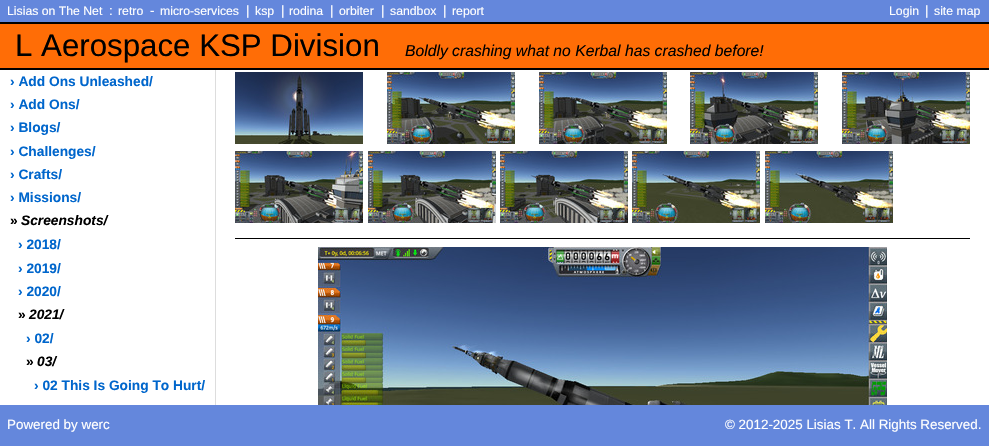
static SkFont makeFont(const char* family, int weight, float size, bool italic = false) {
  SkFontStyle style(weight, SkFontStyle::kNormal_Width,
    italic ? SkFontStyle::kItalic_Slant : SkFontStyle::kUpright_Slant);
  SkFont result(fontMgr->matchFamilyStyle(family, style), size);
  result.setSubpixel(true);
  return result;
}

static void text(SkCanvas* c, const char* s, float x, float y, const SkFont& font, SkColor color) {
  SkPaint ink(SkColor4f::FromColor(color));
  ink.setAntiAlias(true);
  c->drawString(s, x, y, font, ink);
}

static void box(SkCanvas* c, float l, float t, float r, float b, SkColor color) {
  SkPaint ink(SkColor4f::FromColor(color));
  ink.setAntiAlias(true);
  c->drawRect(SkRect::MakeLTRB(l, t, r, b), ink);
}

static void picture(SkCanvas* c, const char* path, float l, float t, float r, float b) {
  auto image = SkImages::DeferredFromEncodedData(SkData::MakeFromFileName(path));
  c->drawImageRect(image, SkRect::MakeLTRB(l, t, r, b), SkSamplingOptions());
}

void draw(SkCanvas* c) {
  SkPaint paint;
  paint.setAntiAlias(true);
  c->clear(0xffffffff);
  box(c, 0, 0, 989, 22, 0xff6487dc);
  SkFont face1 = makeFont("Liberation Sans", 400, 12.25f);
  text(c, "Lisias on The Net", 7, 15, face1, 0xffffffff);
  SkFont face2 = makeFont("Liberation Sans", 400, 13.4f);
  text(c, ":", 109, 15, face2, 0xffffffff);
  text(c, "retro", 118, 15, face1, 0xffffffff);
  text(c, "-", 150, 15, face2, 0xffffffff);
  text(c, "micro-services", 160, 15, face1, 0xffffffff);
  text(c, "|", 246, 15, face2, 0xffffffff);
  text(c, "ksp", 255, 15, face1, 0xffffffff);
  text(c, "|", 281, 15, face2, 0xffffffff);
  text(c, "rodina", 289, 15, face1, 0xffffffff);
  text(c, "|", 330, 15, face2, 0xffffffff);
  text(c, "orbiter", 339, 15, face1, 0xffffffff);
  text(c, "|", 381, 15, face2, 0xffffffff);
  text(c, "sandbox", 390, 15, face1, 0xffffffff);
  text(c, "|", 443, 15, face2, 0xffffffff);
  text(c, "report", 452, 15, face1, 0xffffffff);
  text(c, "Login", 889, 15, face1, 0xffffffff);
  text(c, "|", 925, 15, face2, 0xffffffff);
  text(c, "site map", 934, 15, face1, 0xffffffff);
  box(c, 0, 24, 989, 68, 0xffff6d06);
  box(c, 0, 22, 989, 24, 0xff000000);
  box(c, 0, 68, 989, 70, 0xff000000);
  SkFont face3 = makeFont("Liberation Sans", 400, 31.25f);
  text(c, "L Aerospace KSP Division", 15, 56, face3, 0xff000000);
  SkFont face4 = makeFont("Liberation Sans", 400, 15.7f, true);
  text(c, "Boldly crashing what no Kerbal has crashed before!", 405, 56, face4, 0xff000000);
  SkFont face5 = makeFont("Liberation Sans", 700, 13.75f);
  text(c, "› Add Ons Unleashed/", 10, 86, face5, 0xff0066cc);
  text(c, "› Add Ons/", 10, 109, face5, 0xff0066cc);
  text(c, "› Blogs/", 10, 132, face5, 0xff0066cc);
  text(c, "› Challenges/", 10, 156, face5, 0xff0066cc);
  text(c, "› Crafts/", 10, 179, face5, 0xff0066cc);
  text(c, "› Missions/", 10, 202, face5, 0xff0066cc);
  text(c, "»", 10, 225, face5, 0xff000000);
  SkFont face6 = makeFont("Liberation Sans", 700, 13.75f, true);
  text(c, "Screenshots/", 21, 225, face6, 0xff000000);
  text(c, "› 2018/", 18, 249, face5, 0xff0066cc);
  text(c, "› 2019/", 18, 273, face5, 0xff0066cc);
  text(c, "› 2020/", 18, 296, face5, 0xff0066cc);
  text(c, "»", 18, 319, face5, 0xff000000);
  text(c, "2021/", 29, 319, face6, 0xff000000);
  text(c, "› 02/", 26, 343, face5, 0xff0066cc);
  text(c, "»", 26, 366, face5, 0xff000000);
  text(c, "03/", 37, 366, face6, 0xff000000);
  text(c, "› 02 This Is Going To Hurt/", 34, 390, face5, 0xff0066cc);
  box(c, 215, 70, 216, 405, 0xffdddddd);
  picture(c, "img_01.png", 235, 72, 363, 144);
  picture(c, "img_02.png", 387, 72, 515, 144);
  picture(c, "img_03.png", 539, 72, 667, 144);
  picture(c, "img_04.png", 690, 72, 818, 144);
  picture(c, "img_05.png", 842, 72, 970, 144);
  picture(c, "img_06.png", 235, 151, 363, 223);
  picture(c, "img_07.png", 368, 151, 496, 223);
  picture(c, "img_08.png", 500, 151, 628, 223);
  picture(c, "img_09.png", 632, 151, 760, 223);
  picture(c, "img_10.png", 765, 151, 893, 223);
  box(c, 235, 238, 970, 239, 0xff000000);
  picture(c, "img_11.png", 318, 247, 887, 405);
  box(c, 0, 405, 989, 446, 0xff6487dc);
  text(c, "Powered by werc", 7, 429, face2, 0xffffffff);
  text(c, "© 2012-2025 Lisias T. All Rights Reserved.", 725, 429, face2, 0xffffffff);
}
